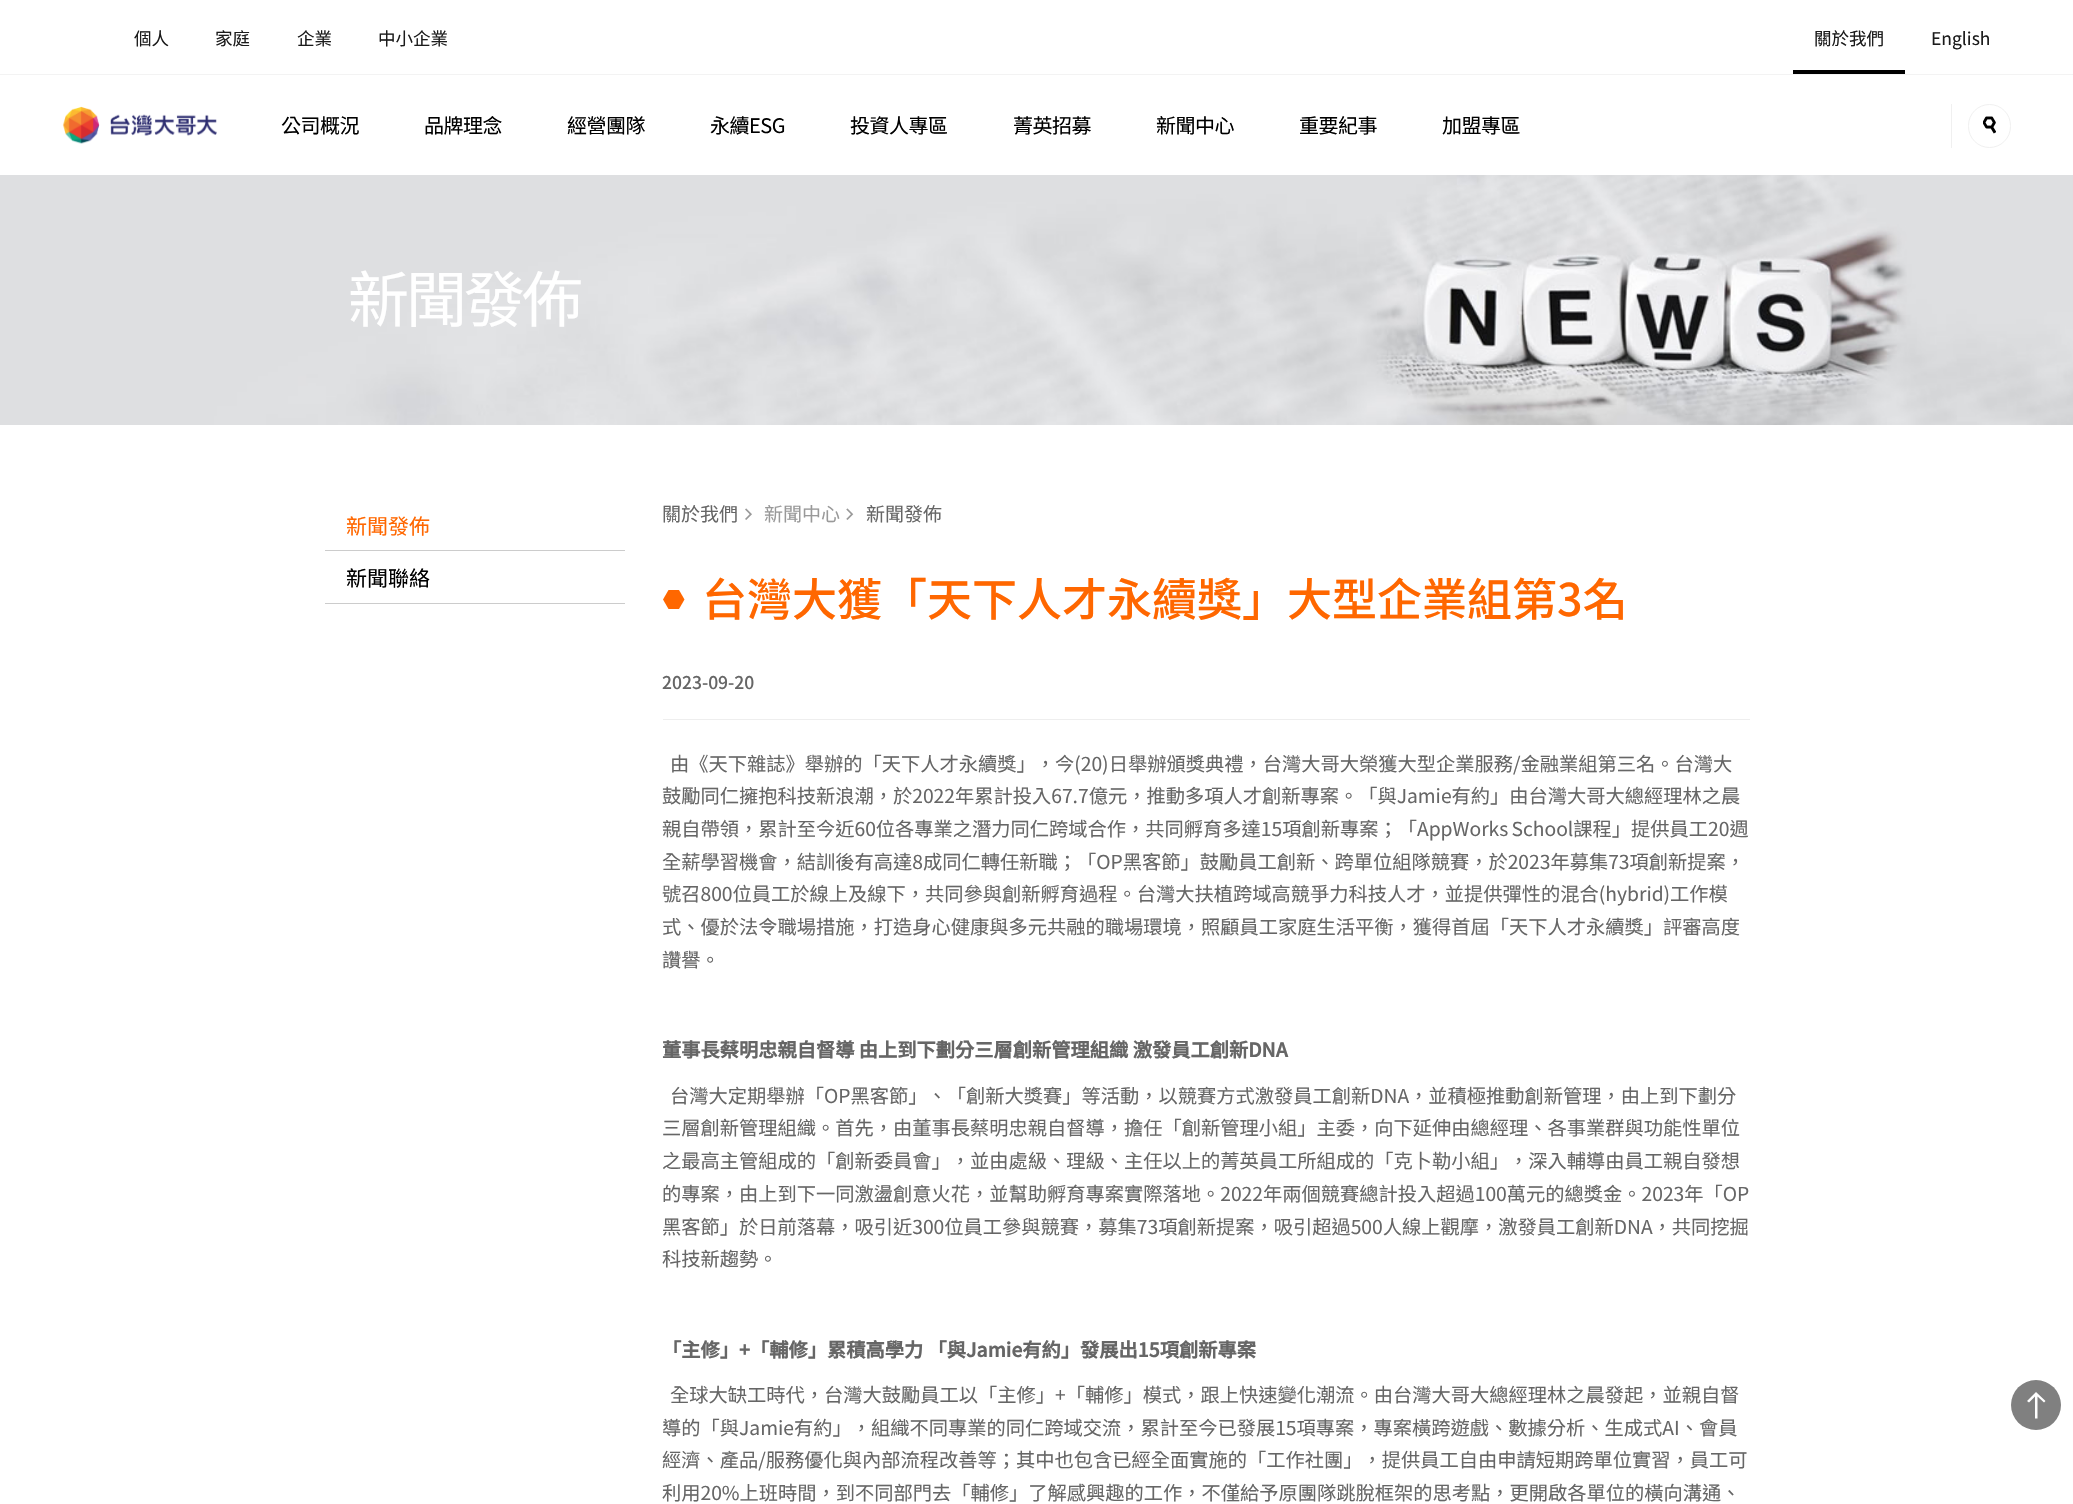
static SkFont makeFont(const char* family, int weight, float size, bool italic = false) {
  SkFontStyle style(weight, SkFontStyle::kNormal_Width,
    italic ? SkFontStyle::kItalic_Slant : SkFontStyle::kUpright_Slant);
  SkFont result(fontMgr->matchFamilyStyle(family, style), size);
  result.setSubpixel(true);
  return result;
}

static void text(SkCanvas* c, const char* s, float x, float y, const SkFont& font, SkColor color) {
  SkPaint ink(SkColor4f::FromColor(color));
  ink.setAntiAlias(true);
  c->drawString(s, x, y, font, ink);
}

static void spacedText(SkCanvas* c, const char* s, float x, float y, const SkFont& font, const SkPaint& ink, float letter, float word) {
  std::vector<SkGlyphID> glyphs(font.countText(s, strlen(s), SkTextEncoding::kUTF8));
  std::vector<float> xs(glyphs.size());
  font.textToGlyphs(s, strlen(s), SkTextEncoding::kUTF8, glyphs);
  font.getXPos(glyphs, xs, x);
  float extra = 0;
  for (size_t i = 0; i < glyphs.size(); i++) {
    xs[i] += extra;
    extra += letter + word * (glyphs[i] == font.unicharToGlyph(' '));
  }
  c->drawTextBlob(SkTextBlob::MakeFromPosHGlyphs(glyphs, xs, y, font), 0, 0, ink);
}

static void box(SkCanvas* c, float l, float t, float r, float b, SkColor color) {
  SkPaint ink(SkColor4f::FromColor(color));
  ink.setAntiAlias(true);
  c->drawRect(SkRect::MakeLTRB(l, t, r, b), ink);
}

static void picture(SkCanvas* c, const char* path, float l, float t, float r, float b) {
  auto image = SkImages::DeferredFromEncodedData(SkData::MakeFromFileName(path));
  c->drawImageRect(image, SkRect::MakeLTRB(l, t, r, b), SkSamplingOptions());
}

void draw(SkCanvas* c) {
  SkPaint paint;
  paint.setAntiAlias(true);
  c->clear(0xffffffff);
  box(c, 0, 74, 2073, 75, 0xfff3f3f3);
  SkFont face1 = makeFont("Noto Sans TC", 400, 17.5f);
  text(c, "個人", 134, 45, face1, 0xff1b1b1b);
  text(c, "家庭", 215, 45, face1, 0xff1b1b1b);
  text(c, "企業", 297, 45, face1, 0xff1b1b1b);
  text(c, "中小企業", 378, 45, face1, 0xff1b1b1b);
  text(c, "關於我們", 1814, 45, face1, 0xff1b1b1b);
  box(c, 1793, 70, 1905, 74, 0xff000000);
  text(c, "English", 1931, 45, face1, 0xff1b1b1b);
  picture(c, "img_01.png", 62, 106, 217, 144);
  SkFont face2 = makeFont("Noto Sans TC", 400, 20);
  paint.setColor(0xff000000);
  spacedText(c, "公司概況", 281, 133, face2, paint, -0.5f, 0);
  spacedText(c, "品牌理念", 424, 133, face2, paint, -0.5f, 0);
  spacedText(c, "經營團隊", 567, 133, face2, paint, -0.5f, 0);
  spacedText(c, "永續ESG", 710, 133, face2, paint, -0.5f, 0);
  spacedText(c, "投資人專區", 850, 133, face2, paint, -0.5f, 0);
  spacedText(c, "菁英招募", 1013, 133, face2, paint, -0.5f, 0);
  spacedText(c, "新聞中心", 1156, 133, face2, paint, -0.5f, 0);
  spacedText(c, "重要紀事", 1299, 133, face2, paint, -0.5f, 0);
  spacedText(c, "加盟專區", 1442, 133, face2, paint, -0.5f, 0);
  box(c, 1951, 104, 1952, 148, 0xfff0f0f0);
  paint.setStyle(SkPaint::kStroke_Style);
  paint.setStrokeWidth(1);
  paint.setColor(0xfff0f0f0);
  c->drawRoundRect(SkRect::MakeLTRB(1968.5f, 104.5f, 2010.5f, 147.5f), 21, 21, paint);
  picture(c, "img_02.png", 1983, 116, 1996, 134);
  picture(c, "img_03.png", 0, 175, 2073, 425);
  SkFont face3 = makeFont("Noto Sans TC", 400, 61);
  paint.setStyle(SkPaint::kFill_Style);
  paint.setColor(0xffffffff);
  spacedText(c, "新聞發佈", 348, 322, face3, paint, -3, 0);
  box(c, 325, 550, 625, 551, 0xffcccccc);
  SkFont face4 = makeFont("Noto Sans TC", 400, 21);
  text(c, "新聞發佈", 346, 534, face4, 0xffff6700);
  box(c, 325, 603, 625, 604, 0xffcccccc);
  text(c, "新聞聯絡", 346, 586, face4, 0xff000000);
  SkFont face5 = makeFont("Noto Sans TC", 400, 19);
  text(c, "關於我們", 662, 521, face5, 0xff666666);
  picture(c, "img_04.png", 745, 508, 752, 520);
  text(c, "新聞中心", 764, 521, face5, 0xff999999);
  picture(c, "img_05.png", 846, 508, 854, 520);
  text(c, "新聞發佈", 866, 521, face5, 0xff666666);
  paint.setColor(0xffff6700);
  c->drawPath(SkPathBuilder().moveTo(679, 590).lineTo(668.5f, 590).lineTo(663, 599.5f).lineTo(668.5f, 609).lineTo(679, 609).lineTo(684.5f, 599.5f).close().detach(), paint);
  SkFont face6 = makeFont("Noto Sans TC", 500, 45);
  text(c, "台灣大獲「天下人才永續獎」大型企業組第3名", 702, 616, face6, 0xffff6700);
  SkFont face7 = makeFont("Noto Sans TC", 500, 17.5f);
  text(c, "2023-09-20", 662, 689, face7, 0xff666666);
  box(c, 663, 719, 1750, 720, 0xffeeeeee);
  SkFont face8 = makeFont("Noto Sans TC", 400, 19.25f);
  text(c, "由《天下雜誌》舉辦的「天下人才永續獎」，今(20)日舉辦頒獎典禮，台灣大哥大榮獲大型企業服務/金融業組第三名。台灣大", 670, 771, face8, 0xff666666);
  text(c, "鼓勵同仁擁抱科技新浪潮，於2022年累計投入67.7億元，推動多項人才創新專案。「與Jamie有約」由台灣大哥大總經理林之晨", 662, 803, face8, 0xff666666);
  paint.setColor(0xff666666);
  spacedText(c, "親自帶領，累計至今近60位各專業之潛力同仁跨域合作，共同孵育多達15項創新專案；「AppWorks School課程」提供員工20週", 662, 836, face8, paint, 0, -1);
  text(c, "全薪學習機會，結訓後有高達8成同仁轉任新職；「OP黑客節」鼓勵員工創新、跨單位組隊競賽，於2023年募集73項創新提案，", 662, 869, face8, 0xff666666);
  text(c, "號召800位員工於線上及線下，共同參與創新孵育過程。台灣大扶植跨域高競爭力科技人才，並提供彈性的混合(hybrid)工作模", 662, 901, face8, 0xff666666);
  text(c, "式、優於法令職場措施，打造身心健康與多元共融的職場環境，照顧員工家庭生活平衡，獲得首屆「天下人才永續獎」評審高度", 662, 934, face8, 0xff666666);
  text(c, "讚譽。", 662, 967, face8, 0xff666666);
  SkFont face9 = makeFont("Noto Sans TC", 700, 19.25f);
  text(c, "董事長蔡明忠親自督導 由上到下劃分三層創新管理組織 激發員工創新DNA", 662, 1057, face9, 0xff666666);
  text(c, "台灣大定期舉辦「OP黑客節」、「創新大獎賽」等活動，以競賽方式激發員工創新DNA，並積極推動創新管理，由上到下劃分", 670, 1103, face8, 0xff666666);
  text(c, "三層創新管理組織。首先，由董事長蔡明忠親自督導，擔任「創新管理小組」主委，向下延伸由總經理、各事業群與功能性單位", 662, 1135, face8, 0xff666666);
  text(c, "之最高主管組成的「創新委員會」，並由處級、理級、主任以上的菁英員工所組成的「克卜勒小組」，深入輔導由員工親自發想", 662, 1168, face8, 0xff666666);
  text(c, "的專案，由上到下一同激盪創意火花，並幫助孵育專案實際落地。2022年兩個競賽總計投入超過100萬元的總獎金。2023年「OP", 662, 1201, face8, 0xff666666);
  text(c, "黑客節」於日前落幕，吸引近300位員工參與競賽，募集73項創新提案，吸引超過500人線上觀摩，激發員工創新DNA，共同挖掘", 662, 1234, face8, 0xff666666);
  text(c, "科技新趨勢。", 662, 1266, face8, 0xff666666);
  text(c, "「主修」+「輔修」累積高學力 「與Jamie有約」發展出15項創新專案", 662, 1357, face9, 0xff666666);
  text(c, "全球大缺工時代，台灣大鼓勵員工以「主修」+「輔修」模式，跟上快速變化潮流。由台灣大哥大總經理林之晨發起，並親自督", 670, 1402, face8, 0xff666666);
  text(c, "導的「與Jamie有約」，組織不同專業的同仁跨域交流，累計至今已發展15項專案，專案橫跨遊戲、數據分析、生成式AI、會員", 662, 1435, face8, 0xff666666);
  text(c, "經濟、產品/服務優化與內部流程改善等；其中也包含已經全面實施的「工作社團」，提供員工自由申請短期跨單位實習，員工可", 662, 1467, face8, 0xff666666);
  text(c, "利用20%上班時間，到不同部門去「輔修」了解感興趣的工作，不僅給予原團隊跳脫框架的思考點，更開啟各單位的橫向溝通、", 662, 1500, face8, 0xff666666);
  paint.setColor(0xff808080);
  c->drawCircle(2036, 1405, 25, paint);
  paint.setColor(0xffffffff);
  c->drawPath(SkPathBuilder().moveTo(2037.5f, 1418.5f).lineTo(2035, 1418.5f).lineTo(2035, 1396.5f).lineTo(2029, 1402.5f).lineTo(2027, 1401).lineTo(2036, 1392).lineTo(2045.5f, 1401).lineTo(2044, 1402.5f).lineTo(2037.5f, 1396.5f).close().detach(), paint);
}
